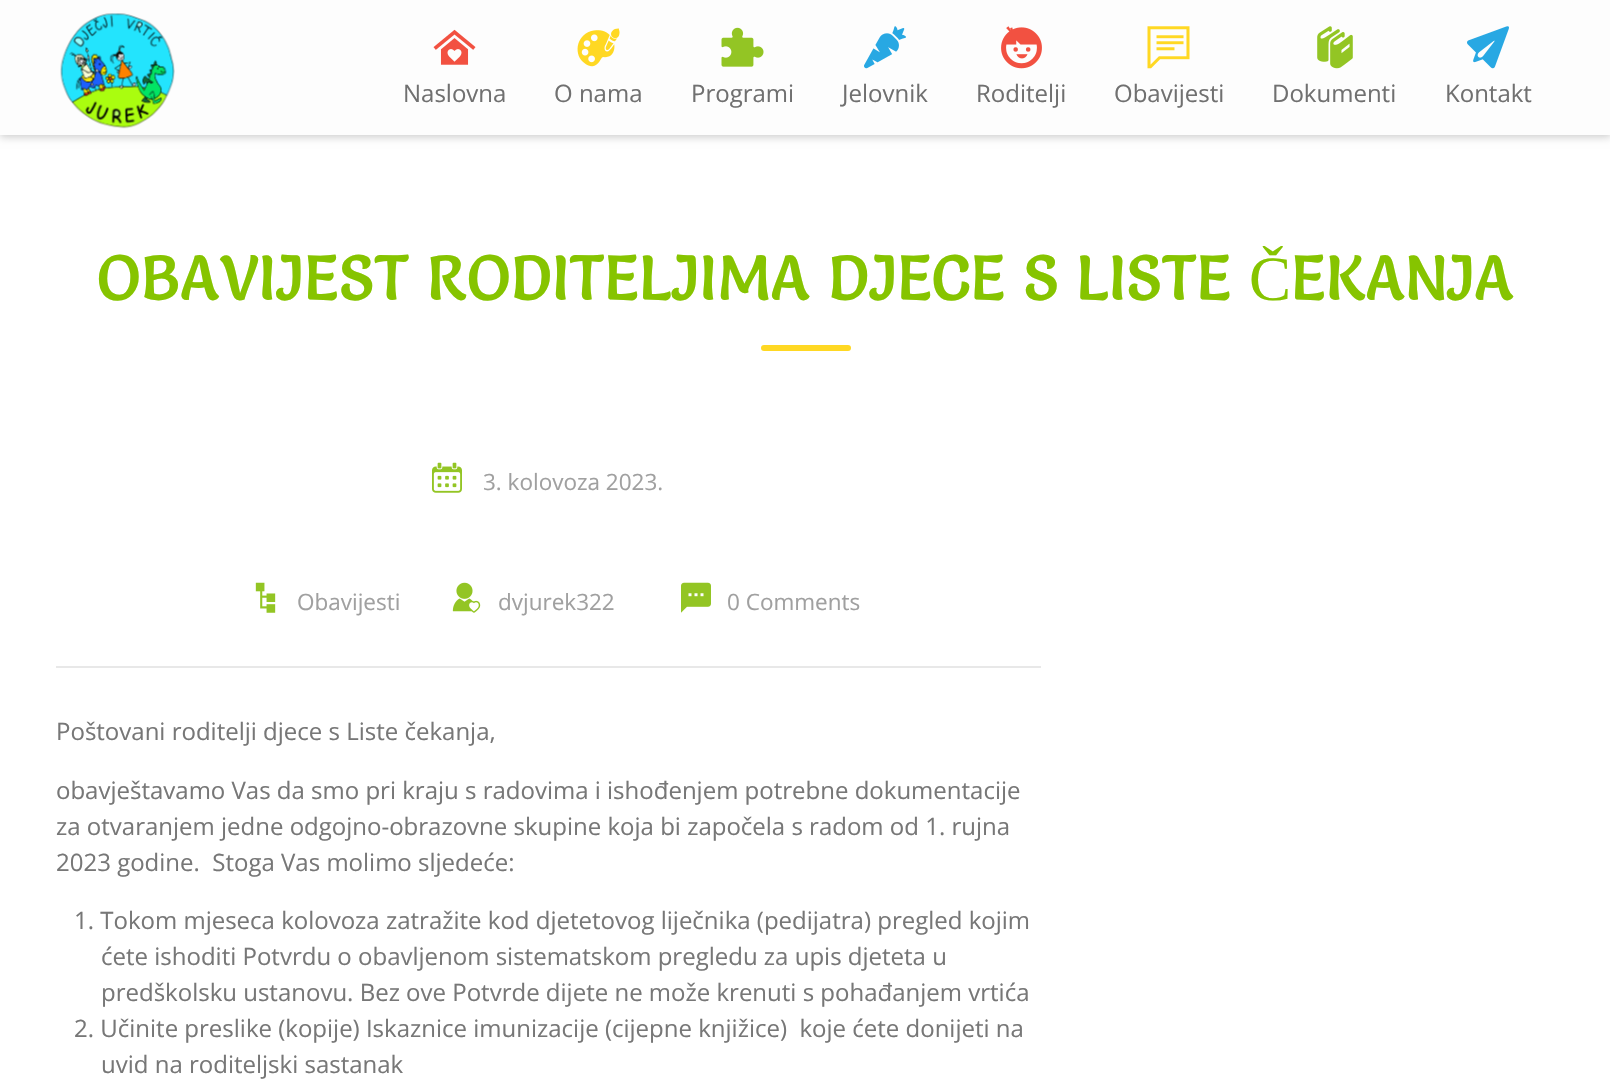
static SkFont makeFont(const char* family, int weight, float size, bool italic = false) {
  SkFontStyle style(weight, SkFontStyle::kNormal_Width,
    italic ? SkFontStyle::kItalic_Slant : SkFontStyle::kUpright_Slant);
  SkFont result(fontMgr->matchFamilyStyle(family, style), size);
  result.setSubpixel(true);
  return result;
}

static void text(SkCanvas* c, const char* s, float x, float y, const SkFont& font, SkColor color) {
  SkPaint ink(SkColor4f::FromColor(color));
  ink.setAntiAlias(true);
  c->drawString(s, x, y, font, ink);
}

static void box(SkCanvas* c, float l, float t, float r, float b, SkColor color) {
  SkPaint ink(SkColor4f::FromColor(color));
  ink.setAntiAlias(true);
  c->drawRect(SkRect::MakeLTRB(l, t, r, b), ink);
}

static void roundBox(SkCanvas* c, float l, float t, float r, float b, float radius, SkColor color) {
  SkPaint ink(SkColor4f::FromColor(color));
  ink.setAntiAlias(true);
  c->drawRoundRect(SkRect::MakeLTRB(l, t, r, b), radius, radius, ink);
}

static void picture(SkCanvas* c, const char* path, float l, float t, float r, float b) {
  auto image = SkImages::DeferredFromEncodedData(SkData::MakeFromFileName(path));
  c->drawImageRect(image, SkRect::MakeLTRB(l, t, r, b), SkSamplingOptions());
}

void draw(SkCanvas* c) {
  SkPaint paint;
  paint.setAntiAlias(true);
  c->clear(0xffffffff);
  paint.setColor(0x33000000);
  paint.setMaskFilter(SkMaskFilter::MakeBlur(kNormal_SkBlurStyle, 4));
  c->drawRect(SkRect::MakeLTRB(0, 2, 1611, 137), paint);
  paint.setMaskFilter(nullptr);
  box(c, 0, 0, 1610, 135, 0xfffdfdfd);
  picture(c, "img_01.png", 60, 13, 175, 129);
  picture(c, "img_02.png", 433, 29, 476, 65);
  SkFont face1 = makeFont("Open Sans", 400, 24);
  text(c, "Naslovna", 403, 102, face1, 0xff707070);
  picture(c, "img_03.png", 577, 28, 620, 67);
  text(c, "O nama", 554, 102, face1, 0xff707070);
  picture(c, "img_04.png", 721, 27, 764, 67);
  text(c, "Programi", 691, 102, face1, 0xff707070);
  picture(c, "img_05.png", 864, 26, 906, 69);
  text(c, "Jelovnik", 842, 102, face1, 0xff707070);
  picture(c, "img_06.png", 1001, 26, 1042, 69);
  text(c, "Roditelji", 976, 102, face1, 0xff707070);
  picture(c, "img_07.png", 1147, 26, 1190, 69);
  text(c, "Obavijesti", 1114, 102, face1, 0xff707070);
  picture(c, "img_08.png", 1317, 26, 1353, 69);
  text(c, "Dokumenti", 1272, 102, face1, 0xff707070);
  picture(c, "img_09.png", 1467, 26, 1509, 69);
  text(c, "Kontakt", 1445, 102, face1, 0xff707070);
  SkFont face2 = makeFont("Salsa", 400, 63);
  text(c, "OBAVIJEST RODITELJIMA DJECE S LISTE", 97, 300, face2, 0xff86c400);
  SkFont face3 = makeFont("Liberation Serif", 400, 63);
  text(c, "Č", 1249, 300, face3, 0xff86c400);
  text(c, "EKANJA", 1291, 300, face2, 0xff86c400);
  roundBox(c, 761, 345, 851, 351, 3, 0xffffd823);
  picture(c, "img_10.png", 432, 462, 462, 493);
  SkFont face4 = makeFont("Open Sans", 400, 22.5f);
  text(c, "3. kolovoza 2023.", 483, 490, face4, 0xffa0a0a0);
  box(c, 56, 666, 1041, 668, 0xffe8e8e8);
  picture(c, "img_11.png", 255, 582, 276, 613);
  text(c, "Obavijesti", 297, 610, face4, 0xffa0a0a0);
  picture(c, "img_12.png", 452, 582, 481, 613);
  text(c, "dvjurek322", 498, 610, face4, 0xffa0a0a0);
  picture(c, "img_13.png", 681, 582, 711, 613);
  text(c, "0 Comments", 727, 610, face4, 0xffa0a0a0);
  text(c, "Poštovani roditelji djece s Liste čekanja,", 56, 740, face1, 0xff777777);
  text(c, "obavještavamo Vas da smo pri kraju s radovima i ishođenjem potrebne dokumentacije", 56, 799, face1, 0xff777777);
  text(c, "za otvaranjem jedne odgojno-obrazovne skupine koja bi započela s radom od 1. rujna", 56, 835, face1, 0xff777777);
  text(c, "2023 godine.  Stoga Vas molimo sljedeće:", 56, 871, face1, 0xff777777);
  text(c, "1. Tokom mjeseca kolovoza zatražite kod djetetovog liječnika (pedijatra) pregled kojim", 74, 929, face1, 0xff777777);
  text(c, "ćete ishoditi Potvrdu o obavljenom sistematskom pregledu za upis djeteta u", 101, 965, face1, 0xff777777);
  text(c, "predškolsku ustanovu. Bez ove Potvrde dijete ne može krenuti s pohađanjem vrtića", 101, 1001, face1, 0xff777777);
  text(c, "2. Učinite preslike (kopije) Iskaznice imunizacije (cijepne knjižice)  koje ćete donijeti na", 74, 1037, face1, 0xff777777);
  text(c, "uvid na roditeljski sastanak", 101, 1073, face1, 0xff777777);
}
